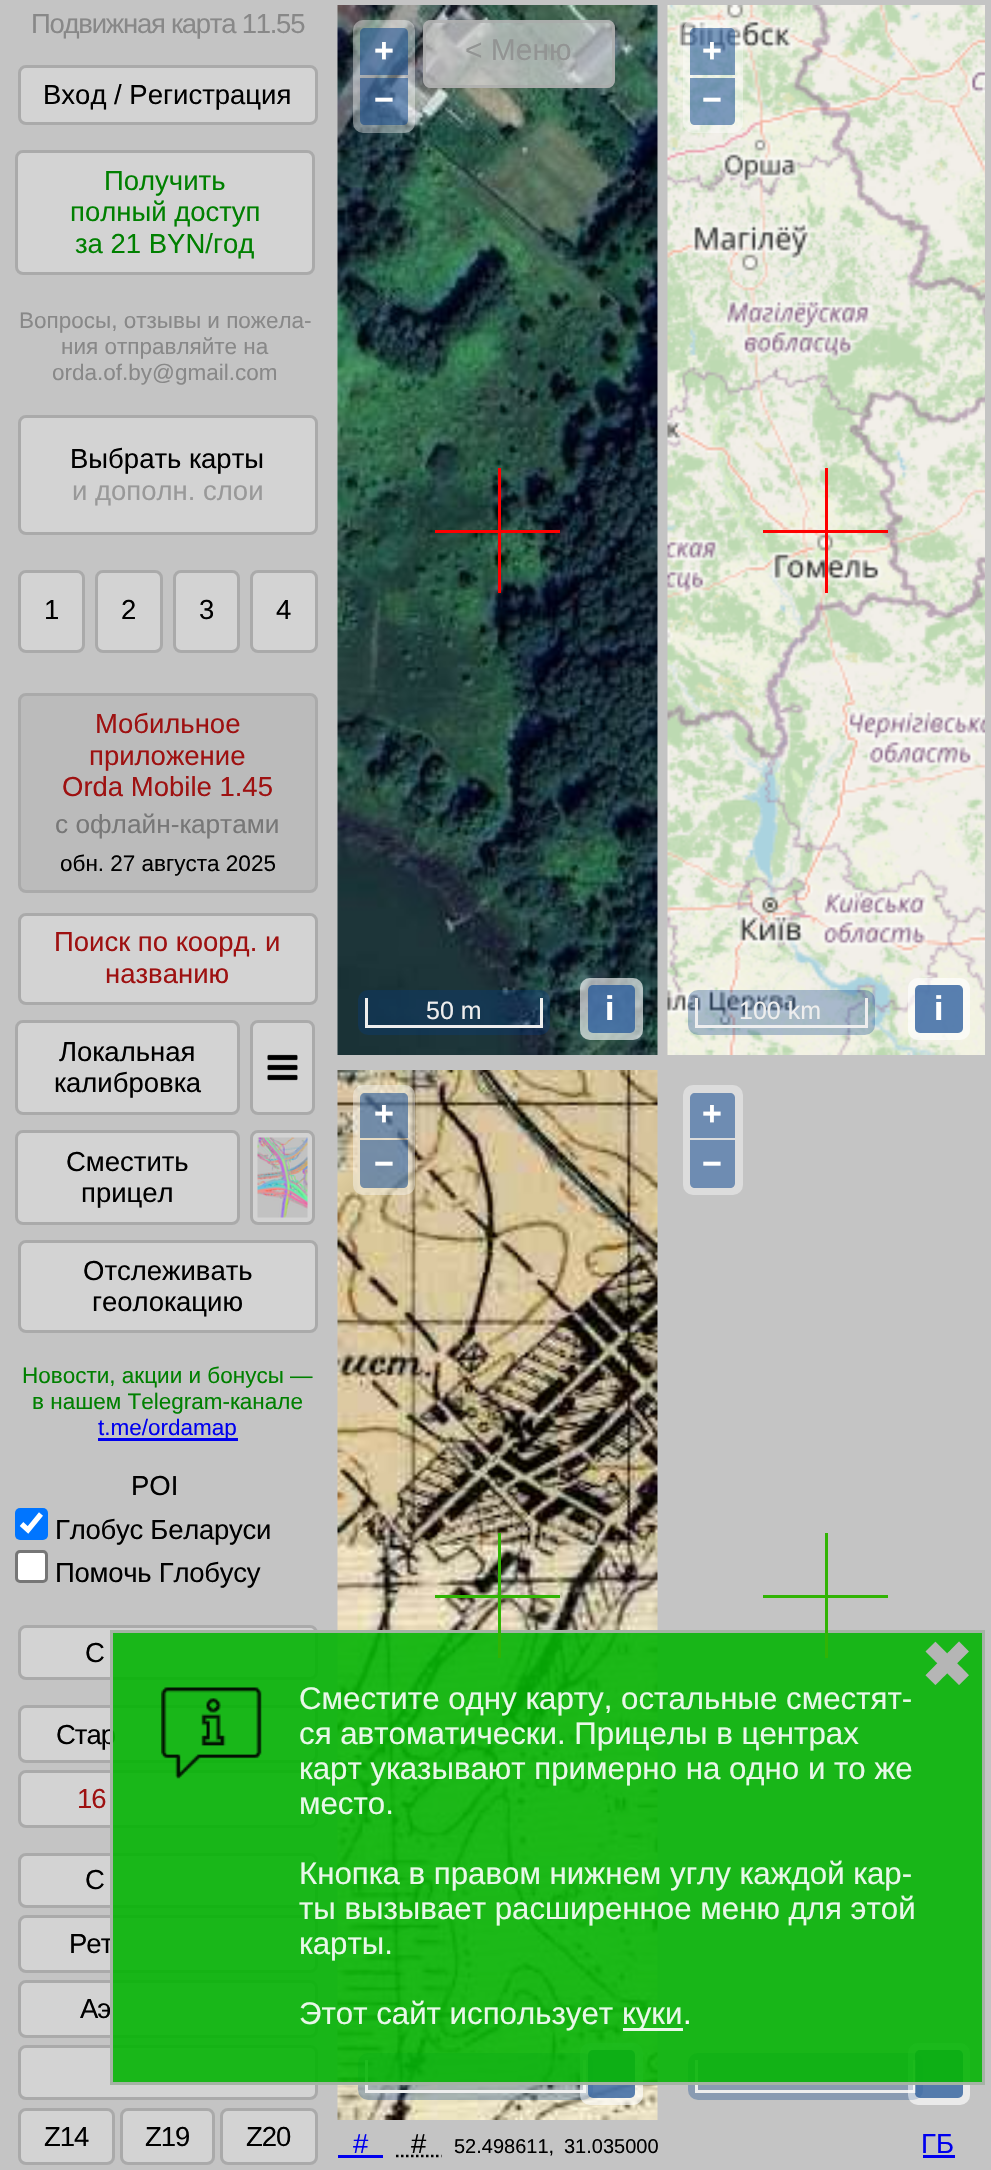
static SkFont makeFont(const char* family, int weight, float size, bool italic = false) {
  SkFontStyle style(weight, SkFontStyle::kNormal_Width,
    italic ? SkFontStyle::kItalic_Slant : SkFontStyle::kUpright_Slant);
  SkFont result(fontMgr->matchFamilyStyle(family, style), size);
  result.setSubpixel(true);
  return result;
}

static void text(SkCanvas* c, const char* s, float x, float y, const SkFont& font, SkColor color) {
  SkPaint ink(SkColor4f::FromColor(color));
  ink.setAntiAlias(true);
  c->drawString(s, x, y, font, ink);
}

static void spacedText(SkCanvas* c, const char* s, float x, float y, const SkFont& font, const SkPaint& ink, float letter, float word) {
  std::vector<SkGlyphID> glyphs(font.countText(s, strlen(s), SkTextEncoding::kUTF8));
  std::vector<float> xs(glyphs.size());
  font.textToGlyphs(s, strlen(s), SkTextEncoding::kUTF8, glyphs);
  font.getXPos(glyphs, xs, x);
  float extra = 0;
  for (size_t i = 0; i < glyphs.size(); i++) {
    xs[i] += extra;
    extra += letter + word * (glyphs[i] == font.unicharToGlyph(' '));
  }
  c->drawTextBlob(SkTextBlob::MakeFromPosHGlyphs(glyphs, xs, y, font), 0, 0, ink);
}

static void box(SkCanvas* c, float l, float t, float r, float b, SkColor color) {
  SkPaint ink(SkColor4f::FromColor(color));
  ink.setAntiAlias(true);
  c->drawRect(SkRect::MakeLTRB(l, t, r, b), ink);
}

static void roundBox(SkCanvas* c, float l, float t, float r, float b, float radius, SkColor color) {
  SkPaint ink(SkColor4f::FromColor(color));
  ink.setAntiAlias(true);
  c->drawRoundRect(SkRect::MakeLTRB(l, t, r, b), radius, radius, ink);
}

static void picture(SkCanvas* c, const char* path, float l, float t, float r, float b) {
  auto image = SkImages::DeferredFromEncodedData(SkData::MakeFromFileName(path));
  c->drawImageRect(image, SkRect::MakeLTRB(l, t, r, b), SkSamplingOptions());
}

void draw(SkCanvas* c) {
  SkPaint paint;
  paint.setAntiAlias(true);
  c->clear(0xffc4c4c4);
  SkFont face1 = makeFont("Liberation Sans", 400, 27.5f);
  paint.setColor(0xff888888);
  spacedText(c, "Подвижная карта 11.55", 31, 33, face1, paint, -1.25f, 0);
  paint.setColor(0xffd3d3d3);
  c->drawRoundRect(SkRect::MakeLTRB(19.5f, 66.5f, 316.5f, 123.5f), 6.5f, 6.5f, paint);
  paint.setStyle(SkPaint::kStroke_Style);
  paint.setStrokeWidth(3);
  paint.setColor(0xffaaaaaa);
  c->drawRoundRect(SkRect::MakeLTRB(19.5f, 66.5f, 316.5f, 123.5f), 6.5f, 6.5f, paint);
  text(c, "Вход / Регистрация", 43, 104, face1, 0xff000000);
  paint.setStyle(SkPaint::kFill_Style);
  paint.setColor(0xffd3d3d3);
  c->drawRoundRect(SkRect::MakeLTRB(16.5f, 151.5f, 313.5f, 273.5f), 6.5f, 6.5f, paint);
  paint.setStyle(SkPaint::kStroke_Style);
  paint.setColor(0xffaaaaaa);
  c->drawRoundRect(SkRect::MakeLTRB(16.5f, 151.5f, 313.5f, 273.5f), 6.5f, 6.5f, paint);
  text(c, "Получить", 104, 190, face1, 0xff008000);
  text(c, "полный доступ", 70, 221, face1, 0xff008000);
  text(c, "за 21 BYN/год", 75, 253, face1, 0xff008000);
  SkFont face2 = makeFont("Liberation Sans", 400, 22.5f);
  text(c, "Вопросы, отзывы и пожела-", 19, 328, face2, 0xff888888);
  text(c, "ния отправляйте на", 61, 354, face2, 0xff888888);
  text(c, "orda.of.by@gmail.com", 52, 380, face2, 0xff888888);
  paint.setStyle(SkPaint::kFill_Style);
  paint.setColor(0xffd3d3d3);
  c->drawRoundRect(SkRect::MakeLTRB(19.5f, 416.5f, 316.5f, 533.5f), 6.5f, 6.5f, paint);
  paint.setStyle(SkPaint::kStroke_Style);
  paint.setColor(0xffaaaaaa);
  c->drawRoundRect(SkRect::MakeLTRB(19.5f, 416.5f, 316.5f, 533.5f), 6.5f, 6.5f, paint);
  text(c, "Выбрать карты", 70, 468, face1, 0xff000000);
  text(c, "и дополн. слои", 72, 500, face1, 0xff999999);
  paint.setStyle(SkPaint::kFill_Style);
  paint.setColor(0xffd3d3d3);
  c->drawRoundRect(SkRect::MakeLTRB(19.5f, 571.5f, 83.5f, 651.5f), 6.5f, 6.5f, paint);
  paint.setStyle(SkPaint::kStroke_Style);
  paint.setColor(0xffaaaaaa);
  c->drawRoundRect(SkRect::MakeLTRB(19.5f, 571.5f, 83.5f, 651.5f), 6.5f, 6.5f, paint);
  text(c, "1", 44, 619, face1, 0xff000000);
  paint.setStyle(SkPaint::kFill_Style);
  paint.setColor(0xffd3d3d3);
  c->drawRoundRect(SkRect::MakeLTRB(96.5f, 571.5f, 161.5f, 651.5f), 6.5f, 6.5f, paint);
  paint.setStyle(SkPaint::kStroke_Style);
  paint.setColor(0xffaaaaaa);
  c->drawRoundRect(SkRect::MakeLTRB(96.5f, 571.5f, 161.5f, 651.5f), 6.5f, 6.5f, paint);
  text(c, "2", 121, 619, face1, 0xff000000);
  paint.setStyle(SkPaint::kFill_Style);
  paint.setColor(0xffd3d3d3);
  c->drawRoundRect(SkRect::MakeLTRB(174.5f, 571.5f, 238.5f, 651.5f), 6.5f, 6.5f, paint);
  paint.setStyle(SkPaint::kStroke_Style);
  paint.setColor(0xffaaaaaa);
  c->drawRoundRect(SkRect::MakeLTRB(174.5f, 571.5f, 238.5f, 651.5f), 6.5f, 6.5f, paint);
  text(c, "3", 199, 619, face1, 0xff000000);
  paint.setStyle(SkPaint::kFill_Style);
  paint.setColor(0xffd3d3d3);
  c->drawRoundRect(SkRect::MakeLTRB(251.5f, 571.5f, 316.5f, 651.5f), 6.5f, 6.5f, paint);
  paint.setStyle(SkPaint::kStroke_Style);
  paint.setColor(0xffaaaaaa);
  c->drawRoundRect(SkRect::MakeLTRB(251.5f, 571.5f, 316.5f, 651.5f), 6.5f, 6.5f, paint);
  text(c, "4", 276, 619, face1, 0xff000000);
  paint.setStyle(SkPaint::kFill_Style);
  paint.setColor(0xffbbbbbb);
  c->drawRoundRect(SkRect::MakeLTRB(19.5f, 694.5f, 316.5f, 891.5f), 6.5f, 6.5f, paint);
  paint.setStyle(SkPaint::kStroke_Style);
  paint.setColor(0xffaaaaaa);
  c->drawRoundRect(SkRect::MakeLTRB(19.5f, 694.5f, 316.5f, 891.5f), 6.5f, 6.5f, paint);
  text(c, "Мобильное", 95, 733, face1, 0xff9e1111);
  text(c, "приложение", 89, 765, face1, 0xff9e1111);
  text(c, "Orda Mobile 1.45", 62, 796, face1, 0xff9e1111);
  SkFont face3 = makeFont("Liberation Sans", 400, 26.25f);
  text(c, "с офлайн-картами", 55, 833, face3, 0xff777777);
  text(c, "обн. 27 августа 2025", 60, 871, face2, 0xff000000);
  paint.setStyle(SkPaint::kFill_Style);
  paint.setColor(0xffd3d3d3);
  c->drawRoundRect(SkRect::MakeLTRB(19.5f, 914.5f, 316.5f, 1003.5f), 6.5f, 6.5f, paint);
  paint.setStyle(SkPaint::kStroke_Style);
  paint.setColor(0xffaaaaaa);
  c->drawRoundRect(SkRect::MakeLTRB(19.5f, 914.5f, 316.5f, 1003.5f), 6.5f, 6.5f, paint);
  text(c, "Поиск по коорд. и", 54, 951, face1, 0xff9e1111);
  text(c, "названию", 105, 983, face1, 0xff9e1111);
  paint.setStyle(SkPaint::kFill_Style);
  paint.setColor(0xffd3d3d3);
  c->drawRoundRect(SkRect::MakeLTRB(16.5f, 1021.5f, 238.5f, 1113.5f), 6.5f, 6.5f, paint);
  paint.setStyle(SkPaint::kStroke_Style);
  paint.setColor(0xffaaaaaa);
  c->drawRoundRect(SkRect::MakeLTRB(16.5f, 1021.5f, 238.5f, 1113.5f), 6.5f, 6.5f, paint);
  text(c, "Локальная", 59, 1061, face1, 0xff000000);
  text(c, "калибровка", 54, 1092, face1, 0xff000000);
  paint.setStyle(SkPaint::kFill_Style);
  paint.setColor(0xffd3d3d3);
  c->drawRoundRect(SkRect::MakeLTRB(251.5f, 1021.5f, 313.5f, 1113.5f), 6.5f, 6.5f, paint);
  paint.setStyle(SkPaint::kStroke_Style);
  paint.setColor(0xffaaaaaa);
  c->drawRoundRect(SkRect::MakeLTRB(251.5f, 1021.5f, 313.5f, 1113.5f), 6.5f, 6.5f, paint);
  picture(c, "img_01.png", 267, 1054, 298, 1081);
  paint.setStyle(SkPaint::kFill_Style);
  paint.setColor(0xffd3d3d3);
  c->drawRoundRect(SkRect::MakeLTRB(16.5f, 1131.5f, 238.5f, 1223.5f), 6.5f, 6.5f, paint);
  paint.setStyle(SkPaint::kStroke_Style);
  paint.setColor(0xffaaaaaa);
  c->drawRoundRect(SkRect::MakeLTRB(16.5f, 1131.5f, 238.5f, 1223.5f), 6.5f, 6.5f, paint);
  text(c, "Сместить", 66, 1171, face1, 0xff000000);
  text(c, "прицел", 81, 1202, face1, 0xff000000);
  paint.setStyle(SkPaint::kFill_Style);
  paint.setColor(0xffd3d3d3);
  c->drawRoundRect(SkRect::MakeLTRB(251.5f, 1131.5f, 313.5f, 1223.5f), 6.5f, 6.5f, paint);
  paint.setStyle(SkPaint::kStroke_Style);
  paint.setColor(0xffaaaaaa);
  c->drawRoundRect(SkRect::MakeLTRB(251.5f, 1131.5f, 313.5f, 1223.5f), 6.5f, 6.5f, paint);
  picture(c, "img_02.png", 257, 1137, 308, 1218);
  paint.setStyle(SkPaint::kFill_Style);
  paint.setColor(0xffd3d3d3);
  c->drawRoundRect(SkRect::MakeLTRB(19.5f, 1241.5f, 316.5f, 1331.5f), 6.5f, 6.5f, paint);
  paint.setStyle(SkPaint::kStroke_Style);
  paint.setColor(0xffaaaaaa);
  c->drawRoundRect(SkRect::MakeLTRB(19.5f, 1241.5f, 316.5f, 1331.5f), 6.5f, 6.5f, paint);
  text(c, "Отслеживать", 83, 1280, face1, 0xff000000);
  text(c, "геолокацию", 92, 1311, face1, 0xff000000);
  text(c, "Новости, акции и бонусы —", 22, 1383, face2, 0xff008000);
  text(c, "в нашем Telegram-канале", 32, 1409, face2, 0xff008000);
  box(c, 98, 1438, 238, 1441, 0xff0000ee);
  text(c, "t.me/ordamap", 98, 1435, face2, 0xff0000ee);
  text(c, "POI", 131, 1495, face1, 0xff000000);
  roundBox(c, 15, 1508, 48, 1540, 5, 0xff0075ff);
  paint.setStrokeWidth(5.2f);
  paint.setColor(0xffffffff);
  c->drawPath(SkPathBuilder().moveTo(21.5f, 1524).lineTo(28, 1530).lineTo(41, 1514).detach(), paint);
  paint.setStyle(SkPaint::kFill_Style);
  paint.setColor(0xff000000);
  spacedText(c, "Глобус Беларуси", 55, 1539, face1, paint, -0.25f, 0);
  paint.setColor(0xffffffff);
  c->drawRoundRect(SkRect::MakeLTRB(16.5f, 1551.5f, 46.5f, 1581.5f), 3.5f, 3.5f, paint);
  paint.setStyle(SkPaint::kStroke_Style);
  paint.setStrokeWidth(3);
  paint.setColor(0xff767676);
  c->drawRoundRect(SkRect::MakeLTRB(16.5f, 1551.5f, 46.5f, 1581.5f), 3.5f, 3.5f, paint);
  paint.setStyle(SkPaint::kFill_Style);
  paint.setColor(0xff000000);
  spacedText(c, "Помочь Глобусу", 55, 1582, face1, paint, -0.25f, 0);
  paint.setColor(0xffd3d3d3);
  c->drawRoundRect(SkRect::MakeLTRB(19.5f, 1626.5f, 316.5f, 1678.5f), 6.5f, 6.5f, paint);
  paint.setStyle(SkPaint::kStroke_Style);
  paint.setColor(0xffaaaaaa);
  c->drawRoundRect(SkRect::MakeLTRB(19.5f, 1626.5f, 316.5f, 1678.5f), 6.5f, 6.5f, paint);
  paint.setStyle(SkPaint::kFill_Style);
  paint.setColor(0xff000000);
  spacedText(c, "С", 85, 1662, face1, paint, -1, 0);
  paint.setColor(0xffd3d3d3);
  c->drawRoundRect(SkRect::MakeLTRB(19.5f, 1706.5f, 316.5f, 1761.5f), 6.5f, 6.5f, paint);
  paint.setStyle(SkPaint::kStroke_Style);
  paint.setColor(0xffaaaaaa);
  c->drawRoundRect(SkRect::MakeLTRB(19.5f, 1706.5f, 316.5f, 1761.5f), 6.5f, 6.5f, paint);
  paint.setStyle(SkPaint::kFill_Style);
  paint.setColor(0xff000000);
  spacedText(c, "Стар", 56, 1744, face1, paint, -1, 0);
  paint.setColor(0xffd3d3d3);
  c->drawRoundRect(SkRect::MakeLTRB(19.5f, 1771.5f, 316.5f, 1826.5f), 6.5f, 6.5f, paint);
  paint.setStyle(SkPaint::kStroke_Style);
  paint.setColor(0xffaaaaaa);
  c->drawRoundRect(SkRect::MakeLTRB(19.5f, 1771.5f, 316.5f, 1826.5f), 6.5f, 6.5f, paint);
  paint.setStyle(SkPaint::kFill_Style);
  paint.setColor(0xff9e1111);
  spacedText(c, "16", 77, 1808, face1, paint, -1, 0);
  paint.setColor(0xffd3d3d3);
  c->drawRoundRect(SkRect::MakeLTRB(19.5f, 1854.5f, 316.5f, 1906.5f), 6.5f, 6.5f, paint);
  paint.setStyle(SkPaint::kStroke_Style);
  paint.setColor(0xffaaaaaa);
  c->drawRoundRect(SkRect::MakeLTRB(19.5f, 1854.5f, 316.5f, 1906.5f), 6.5f, 6.5f, paint);
  paint.setStyle(SkPaint::kFill_Style);
  paint.setColor(0xff000000);
  spacedText(c, "С", 85, 1889, face1, paint, -1, 0);
  paint.setColor(0xffd3d3d3);
  c->drawRoundRect(SkRect::MakeLTRB(19.5f, 1916.5f, 316.5f, 1971.5f), 6.5f, 6.5f, paint);
  paint.setStyle(SkPaint::kStroke_Style);
  paint.setColor(0xffaaaaaa);
  c->drawRoundRect(SkRect::MakeLTRB(19.5f, 1916.5f, 316.5f, 1971.5f), 6.5f, 6.5f, paint);
  paint.setStyle(SkPaint::kFill_Style);
  paint.setColor(0xff000000);
  spacedText(c, "Рет", 69, 1953, face1, paint, -1, 0);
  paint.setColor(0xffd3d3d3);
  c->drawRoundRect(SkRect::MakeLTRB(19.5f, 1981.5f, 316.5f, 2036.5f), 6.5f, 6.5f, paint);
  paint.setStyle(SkPaint::kStroke_Style);
  paint.setColor(0xffaaaaaa);
  c->drawRoundRect(SkRect::MakeLTRB(19.5f, 1981.5f, 316.5f, 2036.5f), 6.5f, 6.5f, paint);
  paint.setStyle(SkPaint::kFill_Style);
  paint.setColor(0xff000000);
  spacedText(c, "Аэ", 80, 2018, face1, paint, -1, 0);
  paint.setColor(0xffd3d3d3);
  c->drawRoundRect(SkRect::MakeLTRB(19.5f, 2046.5f, 316.5f, 2098.5f), 6.5f, 6.5f, paint);
  paint.setStyle(SkPaint::kStroke_Style);
  paint.setColor(0xffaaaaaa);
  c->drawRoundRect(SkRect::MakeLTRB(19.5f, 2046.5f, 316.5f, 2098.5f), 6.5f, 6.5f, paint);
  paint.setStyle(SkPaint::kFill_Style);
  paint.setColor(0xffd3d3d3);
  c->drawRoundRect(SkRect::MakeLTRB(19.5f, 2109.5f, 113.5f, 2163.5f), 6.5f, 6.5f, paint);
  paint.setStyle(SkPaint::kStroke_Style);
  paint.setColor(0xffaaaaaa);
  c->drawRoundRect(SkRect::MakeLTRB(19.5f, 2109.5f, 113.5f, 2163.5f), 6.5f, 6.5f, paint);
  paint.setStyle(SkPaint::kFill_Style);
  paint.setColor(0xff000000);
  spacedText(c, "Z14", 44, 2146, face1, paint, -1, 0);
  paint.setColor(0xffd3d3d3);
  c->drawRoundRect(SkRect::MakeLTRB(121.5f, 2109.5f, 213.5f, 2163.5f), 6.5f, 6.5f, paint);
  paint.setStyle(SkPaint::kStroke_Style);
  paint.setColor(0xffaaaaaa);
  c->drawRoundRect(SkRect::MakeLTRB(121.5f, 2109.5f, 213.5f, 2163.5f), 6.5f, 6.5f, paint);
  paint.setStyle(SkPaint::kFill_Style);
  paint.setColor(0xff000000);
  spacedText(c, "Z19", 145, 2146, face1, paint, -1, 0);
  paint.setColor(0xffd3d3d3);
  c->drawRoundRect(SkRect::MakeLTRB(221.5f, 2109.5f, 316.5f, 2163.5f), 6.5f, 6.5f, paint);
  paint.setStyle(SkPaint::kStroke_Style);
  paint.setColor(0xffaaaaaa);
  c->drawRoundRect(SkRect::MakeLTRB(221.5f, 2109.5f, 316.5f, 2163.5f), 6.5f, 6.5f, paint);
  paint.setStyle(SkPaint::kFill_Style);
  paint.setColor(0xff000000);
  spacedText(c, "Z20", 246, 2146, face1, paint, -1, 0);
  picture(c, "img_03.png", 337, 5, 658, 1055);
  roundBox(c, 423, 20, 615, 88, 8, 0xb3d3d3d3);
  paint.setStyle(SkPaint::kStroke_Style);
  paint.setColor(0xb3aaaaaa);
  c->drawRoundRect(SkRect::MakeLTRB(424.5f, 21.5f, 613.5f, 86.5f), 6.5f, 6.5f, paint);
  SkFont face4 = makeFont("Liberation Sans", 400, 30);
  text(c, "< Меню", 465, 60, face4, 0xff929493);
  roundBox(c, 353, 20, 415, 133, 10, 0x66ffffff);
  paint.setStyle(SkPaint::kFill_Style);
  paint.setColor(0x80003c88);
  c->drawPath(SkPathBuilder().moveTo(365, 28).lineTo(403, 28).cubicTo(406, 28, 408, 30, 408, 33).lineTo(408, 75).lineTo(360, 75).lineTo(360, 33).cubicTo(360, 30, 362, 28, 365, 28).close().detach(), paint);
  SkFont face5 = makeFont("Liberation Sans", 700, 34);
  text(c, "+", 374, 62, face5, 0xffffffff);
  c->drawPath(SkPathBuilder().moveTo(360, 78).lineTo(408, 78).lineTo(408, 120).cubicTo(408, 123, 406, 125, 403, 125).lineTo(365, 125).cubicTo(362, 125, 360, 123, 360, 120).close().detach(), paint);
  text(c, "−", 374, 111, face5, 0xffffffff);
  roundBox(c, 580, 978, 643, 1040, 10, 0x66ffffff);
  roundBox(c, 588, 985, 635, 1033, 5, 0x80003c88);
  text(c, "i", 605, 1020, face5, 0xffffffff);
  roundBox(c, 358, 990, 550, 1035, 10, 0x4d003c88);
  box(c, 540, 998, 543, 1028, 0xffeeeeee);
  box(c, 365, 1025, 543, 1028, 0xffeeeeee);
  box(c, 365, 998, 368, 1028, 0xffeeeeee);
  SkFont face6 = makeFont("Liberation Sans", 400, 25);
  text(c, "50 m", 426, 1019, face6, 0xffeeeeee);
  roundBox(c, 580, 978, 643, 1040, 10, 0x66ffffff);
  roundBox(c, 588, 985, 635, 1033, 5, 0x80003c88);
  text(c, "i", 605, 1020, face5, 0xffffffff);
  box(c, 498, 468, 501, 593, 0xffff0000);
  box(c, 435, 530, 560, 533, 0xffff0000);
  picture(c, "img_04.png", 667, 5, 985, 1055);
  roundBox(c, 683, 20, 743, 133, 10, 0x66ffffff);
  c->drawPath(SkPathBuilder().moveTo(695, 28).lineTo(730, 28).cubicTo(733, 28, 735, 30, 735, 33).lineTo(735, 75).lineTo(690, 75).lineTo(690, 33).cubicTo(690, 30, 692, 28, 695, 28).close().detach(), paint);
  text(c, "+", 702, 62, face5, 0xffffffff);
  c->drawPath(SkPathBuilder().moveTo(690, 78).lineTo(735, 78).lineTo(735, 120).cubicTo(735, 123, 733, 125, 730, 125).lineTo(695, 125).cubicTo(692, 125, 690, 123, 690, 120).close().detach(), paint);
  text(c, "−", 702, 111, face5, 0xffffffff);
  roundBox(c, 908, 978, 970, 1040, 10, 0x66ffffff);
  roundBox(c, 915, 985, 963, 1033, 5, 0x80003c88);
  text(c, "i", 934, 1020, face5, 0xffffffff);
  roundBox(c, 688, 990, 875, 1035, 10, 0x4d003c88);
  box(c, 865, 998, 868, 1028, 0xffeeeeee);
  box(c, 695, 1025, 868, 1028, 0xffeeeeee);
  box(c, 695, 998, 698, 1028, 0xffeeeeee);
  text(c, "100 km", 739, 1019, face6, 0xffeeeeee);
  roundBox(c, 908, 978, 970, 1040, 10, 0x66ffffff);
  roundBox(c, 915, 985, 963, 1033, 5, 0x80003c88);
  text(c, "i", 934, 1020, face5, 0xffffffff);
  box(c, 825, 468, 828, 593, 0xffff0000);
  box(c, 763, 530, 888, 533, 0xffff0000);
  picture(c, "img_05.png", 337, 1070, 658, 2120);
  roundBox(c, 353, 1085, 415, 1195, 10, 0x66ffffff);
  c->drawPath(SkPathBuilder().moveTo(365, 1093).lineTo(403, 1093).cubicTo(406, 1093, 408, 1095, 408, 1098).lineTo(408, 1138).lineTo(360, 1138).lineTo(360, 1098).cubicTo(360, 1095, 362, 1093, 365, 1093).close().detach(), paint);
  text(c, "+", 374, 1125, face5, 0xffffffff);
  c->drawPath(SkPathBuilder().moveTo(360, 1140).lineTo(408, 1140).lineTo(408, 1183).cubicTo(408, 1186, 406, 1188, 403, 1188).lineTo(365, 1188).cubicTo(362, 1188, 360, 1186, 360, 1183).close().detach(), paint);
  text(c, "−", 374, 1175, face5, 0xffffffff);
  roundBox(c, 580, 2043, 643, 2105, 10, 0x66ffffff);
  roundBox(c, 588, 2050, 635, 2098, 5, 0x80003c88);
  roundBox(c, 358, 2053, 593, 2100, 10, 0x4d003c88);
  box(c, 583, 2060, 586, 2093, 0xffeeeeee);
  box(c, 365, 2090, 585, 2093, 0xffeeeeee);
  box(c, 365, 2060, 368, 2093, 0xffeeeeee);
  roundBox(c, 580, 2043, 643, 2105, 10, 0x66ffffff);
  roundBox(c, 588, 2050, 635, 2098, 5, 0x80003c88);
  roundBox(c, 908, 2043, 970, 2105, 10, 0xffdcdcdc);
  roundBox(c, 915, 2050, 963, 2098, 5, 0xff6e8cb2);
  roundBox(c, 688, 2053, 923, 2100, 10, 0x4d003c88);
  box(c, 913, 2060, 916, 2093, 0xffeeeeee);
  box(c, 695, 2090, 915, 2093, 0xffeeeeee);
  box(c, 695, 2060, 698, 2093, 0xffeeeeee);
  roundBox(c, 908, 2043, 970, 2105, 10, 0x66ffffff);
  roundBox(c, 915, 2050, 963, 2098, 5, 0x80003c88);
  box(c, 110, 1630, 985, 2085, 0xe604b404);
  paint.setStyle(SkPaint::kStroke_Style);
  paint.setColor(0xe6b3b3b3);
  c->drawRect(SkRect::MakeLTRB(111.5f, 1631.5f, 983.5f, 2083.5f), paint);
  box(c, 498, 1533, 501, 1658, 0xff31b404);
  box(c, 435, 1595, 560, 1598, 0xff31b404);
  roundBox(c, 683, 1085, 743, 1195, 10, 0xffdcdcdc);
  paint.setStyle(SkPaint::kFill_Style);
  paint.setColor(0xff6e8cb2);
  c->drawPath(SkPathBuilder().moveTo(695, 1093).lineTo(730, 1093).cubicTo(733, 1093, 735, 1095, 735, 1098).lineTo(735, 1138).lineTo(690, 1138).lineTo(690, 1098).cubicTo(690, 1095, 692, 1093, 695, 1093).close().detach(), paint);
  text(c, "+", 702, 1125, face5, 0xffffffff);
  c->drawPath(SkPathBuilder().moveTo(690, 1140).lineTo(735, 1140).lineTo(735, 1183).cubicTo(735, 1186, 733, 1188, 730, 1188).lineTo(695, 1188).cubicTo(692, 1188, 690, 1186, 690, 1183).close().detach(), paint);
  text(c, "−", 702, 1175, face5, 0xffffffff);
  box(c, 825, 1533, 828, 1658, 0xff31b404);
  box(c, 763, 1595, 888, 1598, 0xff31b404);
  text(c, "#", 353, 2153, face1, 0xff0000ee);
  box(c, 338, 2155, 383, 2158, 0xff0000ee);
  text(c, "#", 411, 2153, face1, 0xff000000);
  paint.setStyle(SkPaint::kStroke_Style);
  paint.setStrokeWidth(2.5f);
  paint.setColor(0xff000000);
  paint.setPathEffect(SkDashPathEffect::Make({{2.5f, 2.5f}}, 0));
  c->drawPath(SkPathBuilder().moveTo(396, 2156).lineTo(441.5f, 2156).detach(), paint);
  paint.setPathEffect(nullptr);
  SkFont face7 = makeFont("Liberation Sans", 400, 20);
  text(c, "52.498611,", 454, 2153, face7, 0xff000000);
  text(c, "31.035000", 564, 2153, face7, 0xff000000);
  text(c, "ГБ", 921, 2153, face1, 0xff0000ee);
  box(c, 923, 2155, 955, 2158, 0xff0000ee);
  SkFont face8 = makeFont("DejaVu Sans", 400, 65);
  text(c, "✖", 920, 1687, face8, 0xffb5b5b5);
  picture(c, "img_06.png", 161, 1687, 262, 1779);
  SkFont face9 = makeFont("Liberation Sans", 400, 31.25f);
  text(c, "Сместите одну карту, остальные сместят-", 299, 1709, face9, 0xffe8f8e8);
  text(c, "ся автоматически. Прицелы в центрах", 299, 1744, face9, 0xffe8f8e8);
  text(c, "карт указывают примерно на одно и то же", 299, 1779, face9, 0xffe8f8e8);
  text(c, "место.", 299, 1814, face9, 0xffe8f8e8);
  text(c, "Кнопка в правом нижнем углу каждой кар-", 299, 1884, face9, 0xffe8f8e8);
  text(c, "ты вызывает расширенное меню для этой", 299, 1919, face9, 0xffe8f8e8);
  text(c, "карты.", 299, 1954, face9, 0xffe8f8e8);
  text(c, "Этот сайт использует", 299, 2024, face9, 0xffe8f8e8);
  box(c, 623, 2028, 683, 2031, 0xe6ffffff);
  text(c, "куки", 622, 2024, face9, 0xffe8f8e8);
  text(c, ".", 683, 2024, face9, 0xfff9f9f9);
}
